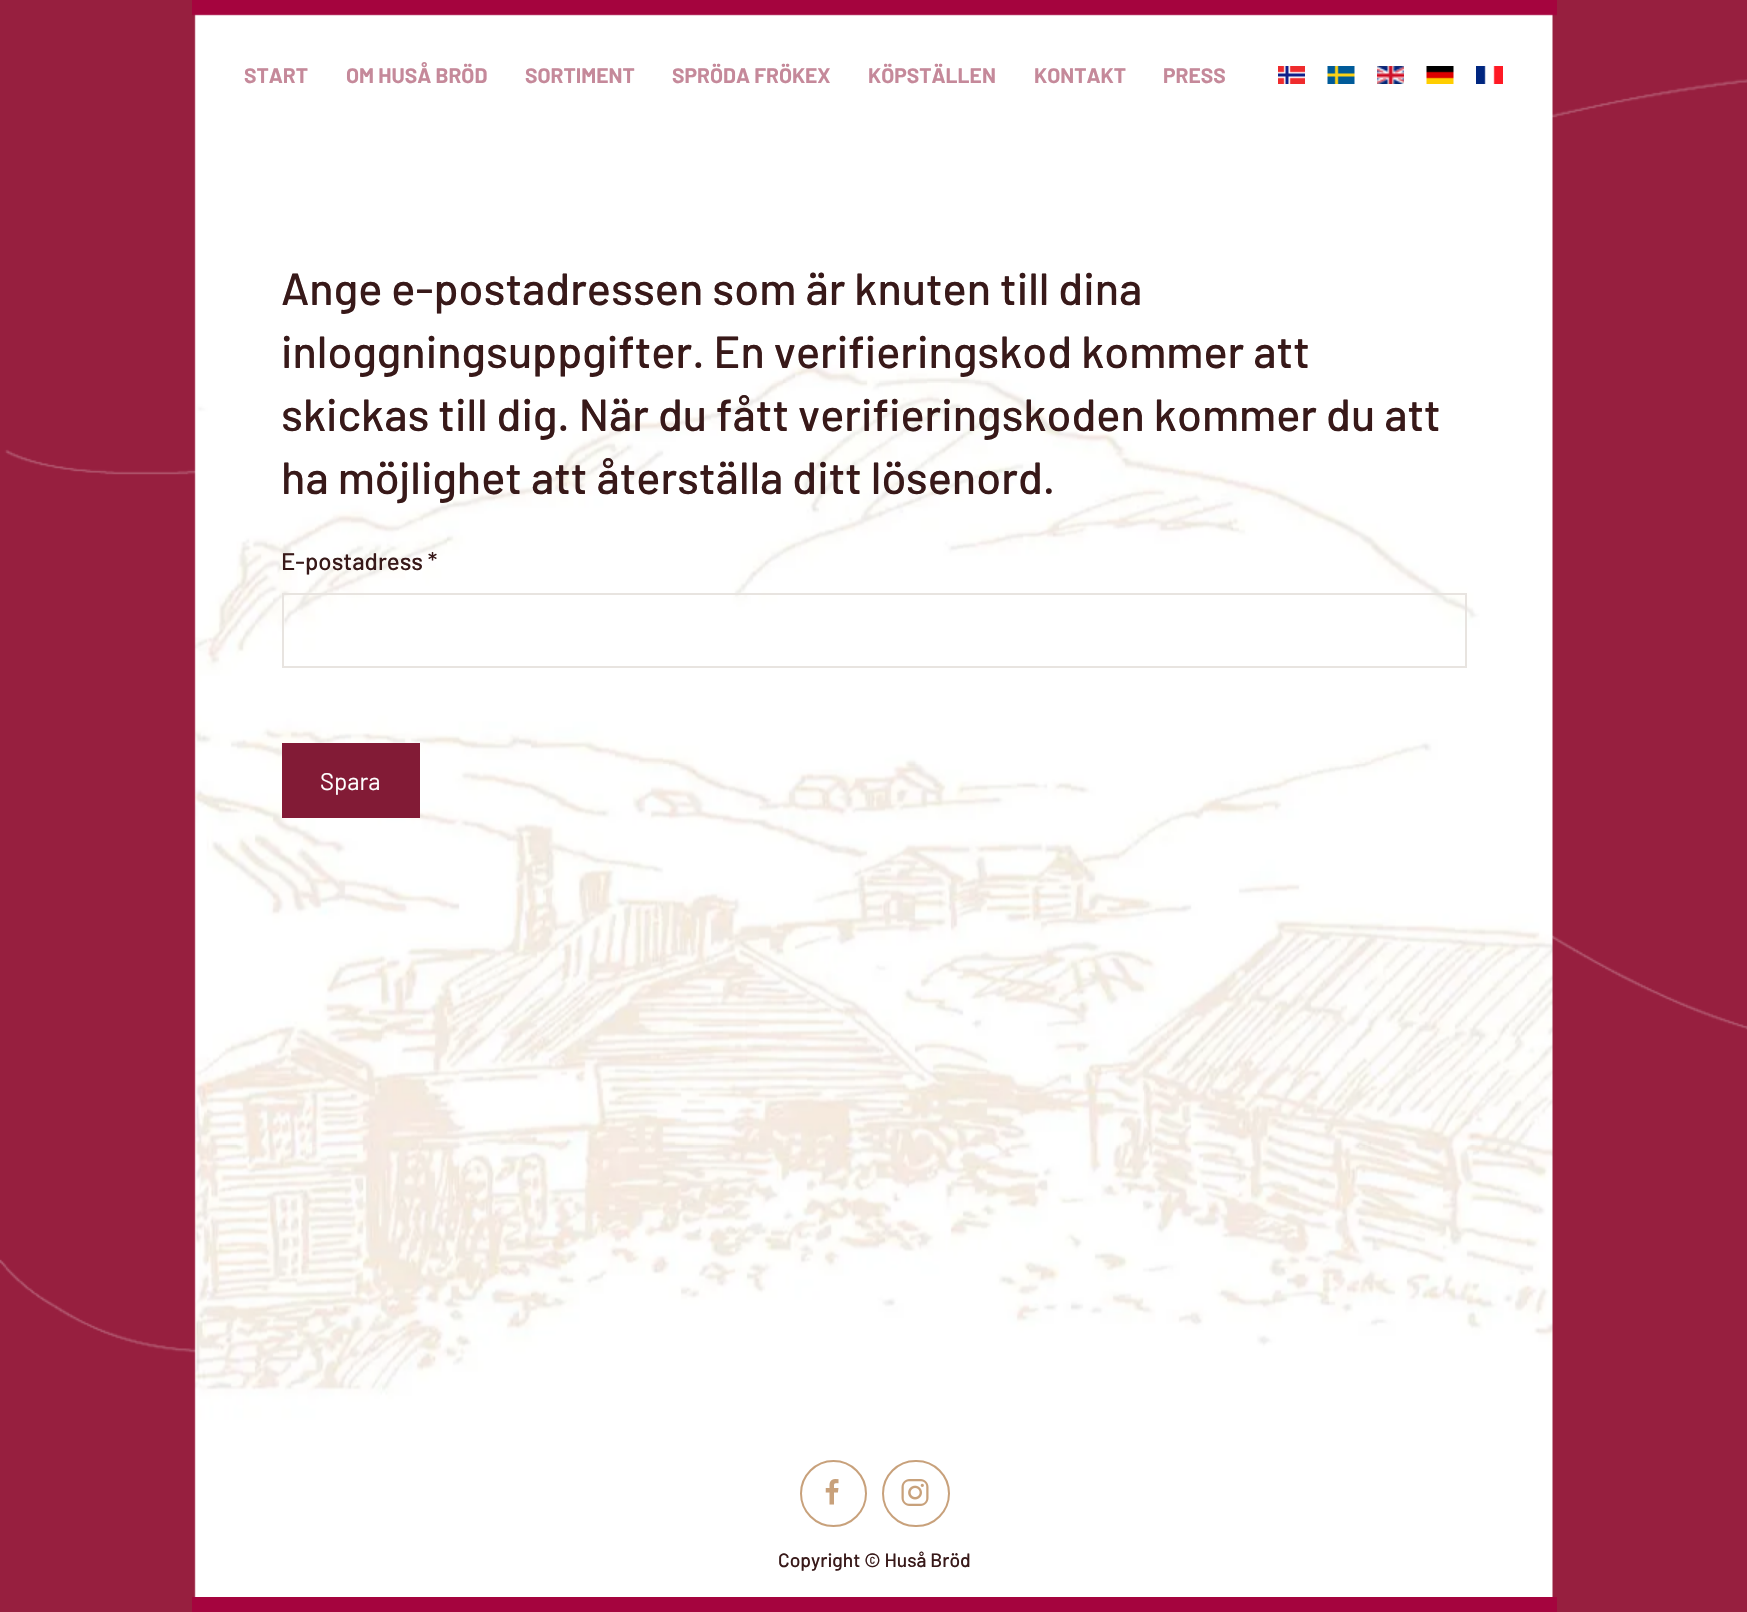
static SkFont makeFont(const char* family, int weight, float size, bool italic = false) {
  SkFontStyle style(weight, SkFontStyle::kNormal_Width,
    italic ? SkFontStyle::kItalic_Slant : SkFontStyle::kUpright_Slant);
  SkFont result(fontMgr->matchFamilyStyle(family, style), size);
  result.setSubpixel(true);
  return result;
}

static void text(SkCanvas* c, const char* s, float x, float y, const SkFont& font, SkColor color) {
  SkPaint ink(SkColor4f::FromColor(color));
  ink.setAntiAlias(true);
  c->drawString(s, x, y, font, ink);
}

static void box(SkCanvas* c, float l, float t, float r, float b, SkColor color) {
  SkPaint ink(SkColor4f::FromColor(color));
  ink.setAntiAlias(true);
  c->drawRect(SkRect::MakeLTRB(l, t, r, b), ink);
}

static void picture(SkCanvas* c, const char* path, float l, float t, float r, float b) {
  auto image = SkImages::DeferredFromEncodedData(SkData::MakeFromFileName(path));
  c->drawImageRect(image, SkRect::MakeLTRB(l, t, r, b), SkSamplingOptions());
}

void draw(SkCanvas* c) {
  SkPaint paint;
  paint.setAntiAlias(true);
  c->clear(0xff971f3f);
  picture(c, "img_01.png", 0, 79, 1747, 1353);
  picture(c, "img_02.png", 194, 14, 1553, 1597);
  picture(c, "img_03.png", 192, 0, 1557, 16);
  SkFont face1 = makeFont("Barlow", 700, 21);
  text(c, "START", 244, 83, face1, 0xffc5899a);
  text(c, "OM HUSÅ BRÖD", 346, 83, face1, 0xffc5899a);
  text(c, "SORTIMENT", 525, 83, face1, 0xffc5899a);
  text(c, "SPRÖDA FRÖKEX", 672, 83, face1, 0xffc5899a);
  text(c, "KÖPSTÄLLEN", 868, 83, face1, 0xffc5899a);
  text(c, "KONTAKT", 1034, 83, face1, 0xffc5899a);
  text(c, "PRESS", 1163, 83, face1, 0xffc5899a);
  picture(c, "img_04.png", 1278, 66, 1305, 84);
  picture(c, "img_05.png", 1327, 66, 1355, 84);
  picture(c, "img_06.png", 1377, 66, 1404, 84);
  picture(c, "img_07.png", 1426, 66, 1454, 84);
  picture(c, "img_08.png", 1476, 66, 1503, 84);
  SkFont face2 = makeFont("Barlow", 500, 45);
  text(c, "Ange e-postadressen som är knuten till dina", 281, 305, face2, 0xff381919);
  text(c, "inloggningsuppgifter. En verifieringskod kommer att", 281, 368, face2, 0xff381919);
  text(c, "skickas till dig. När du fått verifieringskoden kommer du att", 281, 431, face2, 0xff381919);
  text(c, "ha möjlighet att återställa ditt lösenord.", 281, 494, face2, 0xff381919);
  SkFont face3 = makeFont("Barlow", 500, 24);
  text(c, "E-postadress *", 281, 570, face3, 0xff381919);
  paint.setStyle(SkPaint::kStroke_Style);
  paint.setStrokeWidth(2);
  paint.setColor(0xffe8e4e0);
  c->drawRect(SkRect::MakeLTRB(283, 594, 1466, 667), paint);
  box(c, 282, 743, 420, 818, 0xff821b36);
  SkFont face4 = makeFont("Barlow", 400, 24);
  text(c, "Spara", 320, 790, face4, 0xffffffff);
  box(c, 192, 1597, 1557, 1612, 0xffa5043e);
  paint.setColor(0xffc8a17b);
  c->drawCircle(833.5f, 1493.5f, 32.5f, paint);
  picture(c, "img_09.png", 825, 1479, 839, 1505);
  c->drawRoundRect(SkRect::MakeLTRB(883, 1461, 949, 1526), 32.5f, 32.5f, paint);
  picture(c, "img_10.png", 901, 1479, 929, 1506);
  SkFont face5 = makeFont("Barlow", 500, 19.25f);
  text(c, "Copyright © Huså Bröd", 778, 1567, face5, 0xff381919);
}
